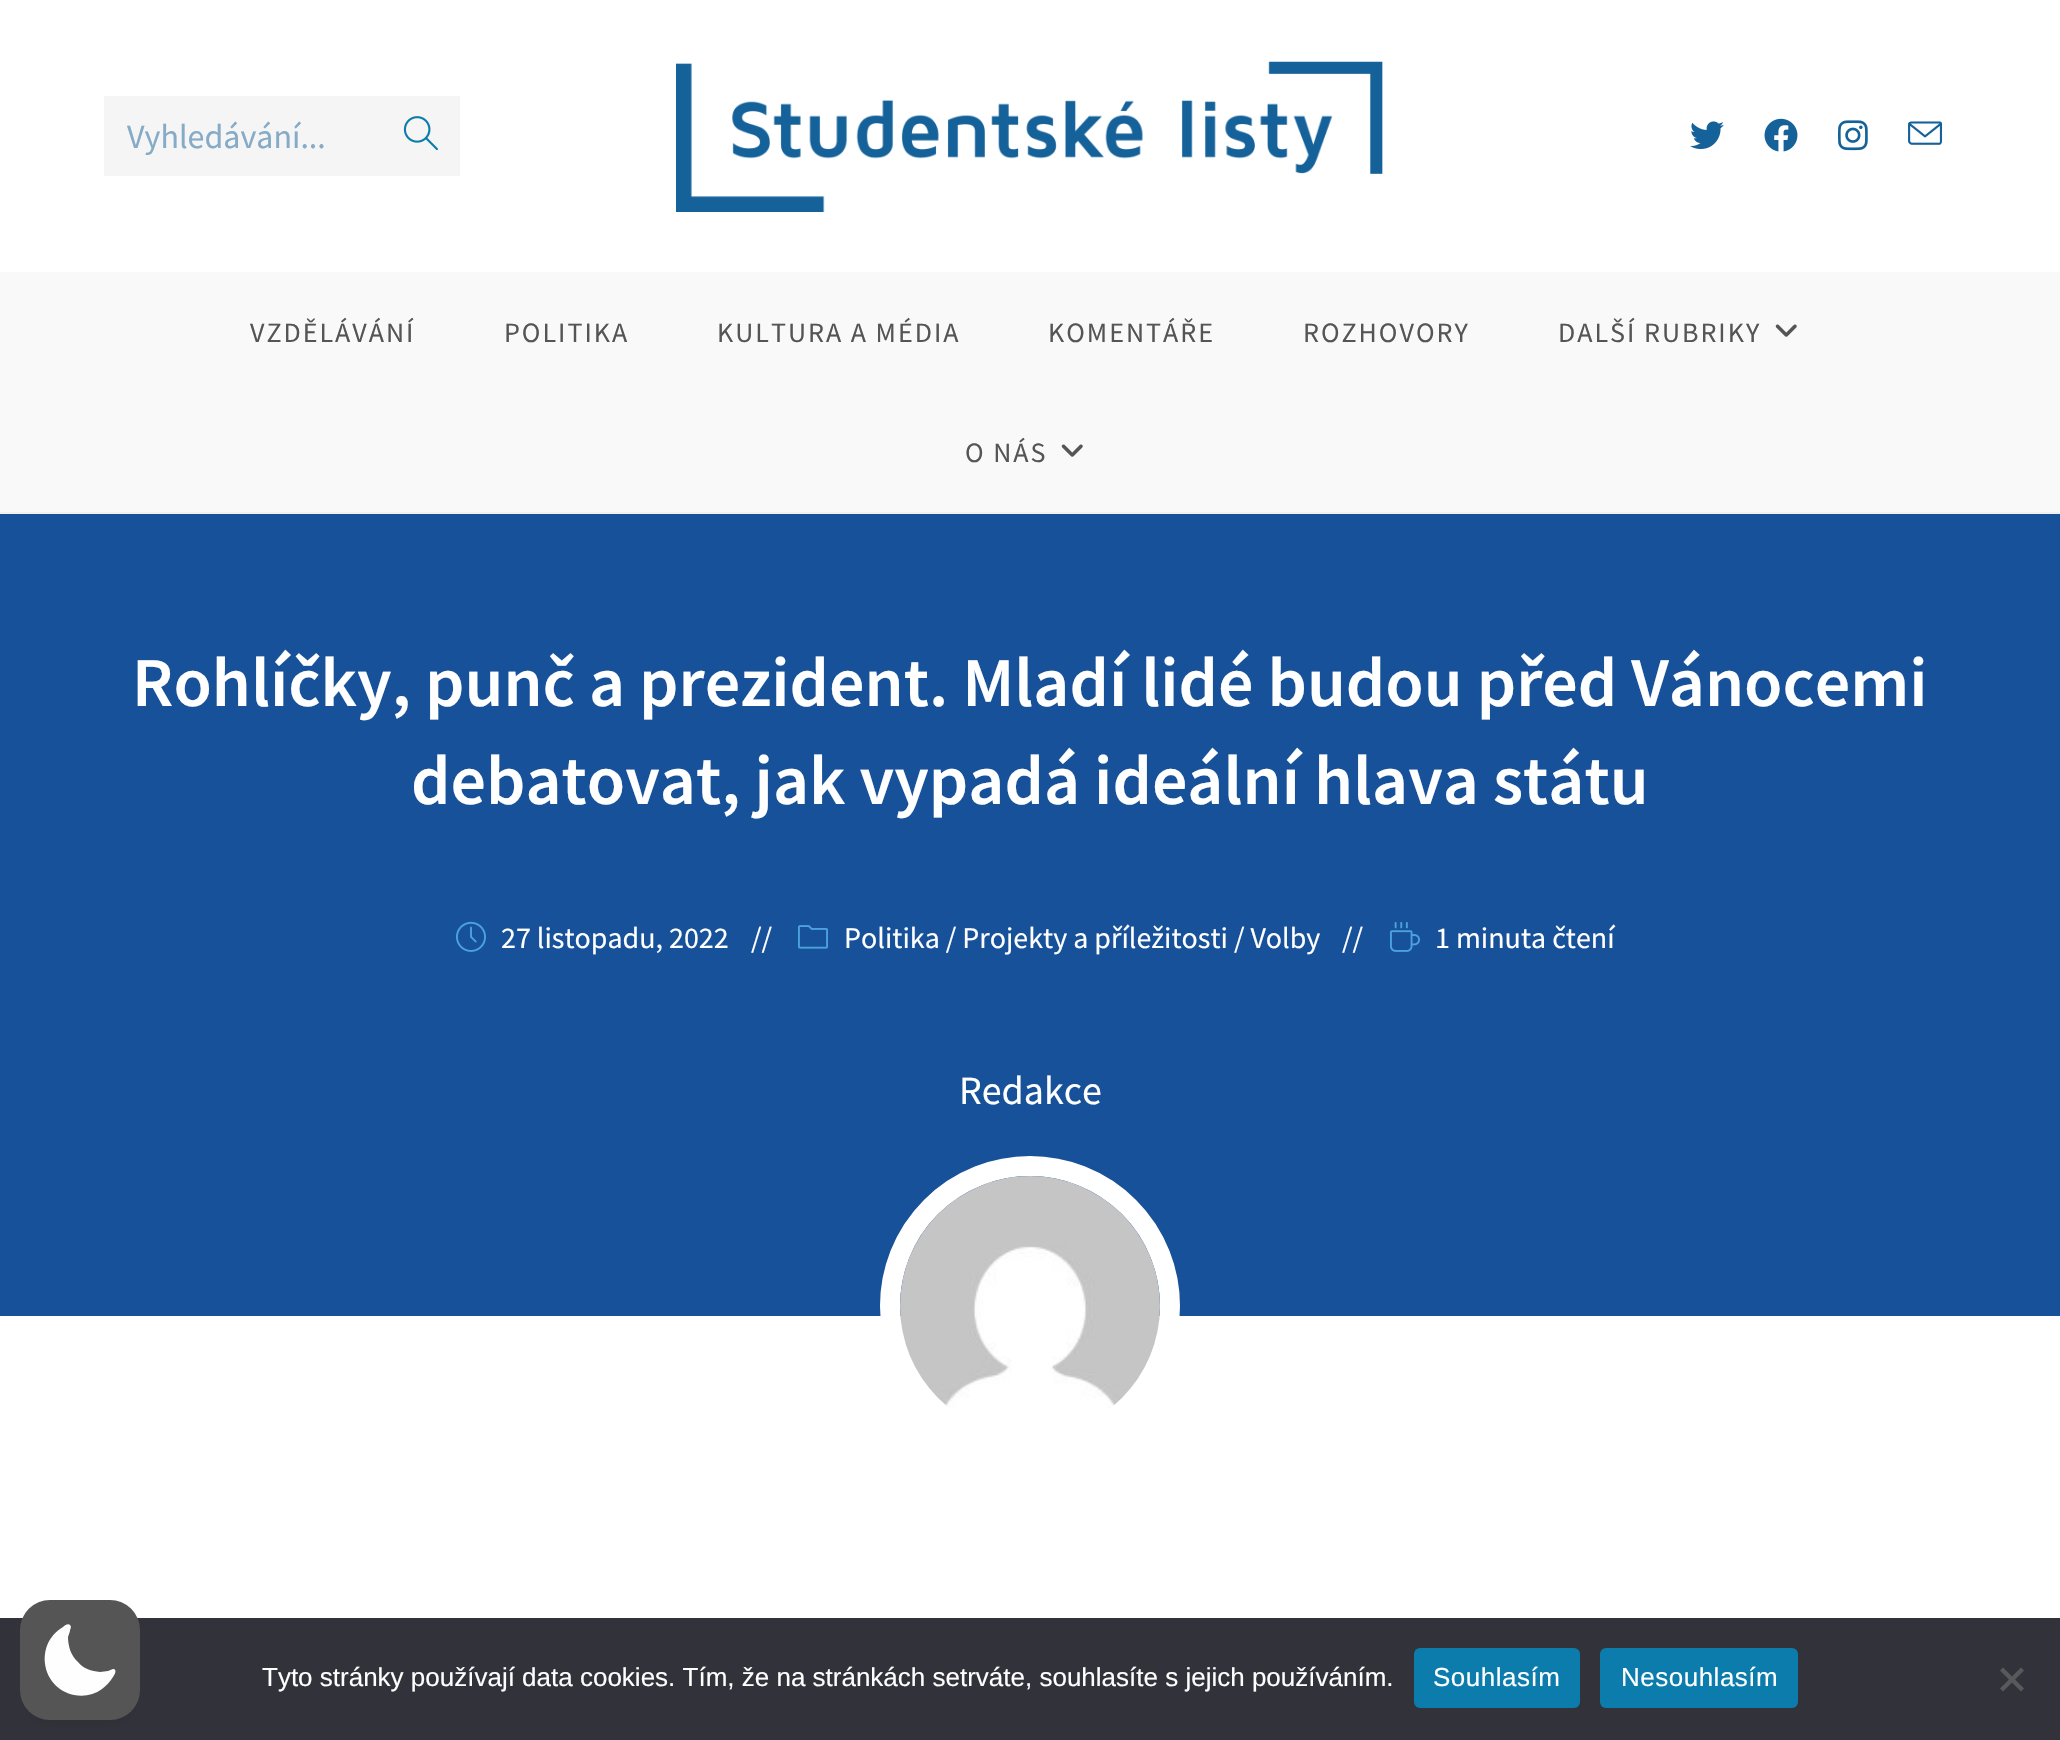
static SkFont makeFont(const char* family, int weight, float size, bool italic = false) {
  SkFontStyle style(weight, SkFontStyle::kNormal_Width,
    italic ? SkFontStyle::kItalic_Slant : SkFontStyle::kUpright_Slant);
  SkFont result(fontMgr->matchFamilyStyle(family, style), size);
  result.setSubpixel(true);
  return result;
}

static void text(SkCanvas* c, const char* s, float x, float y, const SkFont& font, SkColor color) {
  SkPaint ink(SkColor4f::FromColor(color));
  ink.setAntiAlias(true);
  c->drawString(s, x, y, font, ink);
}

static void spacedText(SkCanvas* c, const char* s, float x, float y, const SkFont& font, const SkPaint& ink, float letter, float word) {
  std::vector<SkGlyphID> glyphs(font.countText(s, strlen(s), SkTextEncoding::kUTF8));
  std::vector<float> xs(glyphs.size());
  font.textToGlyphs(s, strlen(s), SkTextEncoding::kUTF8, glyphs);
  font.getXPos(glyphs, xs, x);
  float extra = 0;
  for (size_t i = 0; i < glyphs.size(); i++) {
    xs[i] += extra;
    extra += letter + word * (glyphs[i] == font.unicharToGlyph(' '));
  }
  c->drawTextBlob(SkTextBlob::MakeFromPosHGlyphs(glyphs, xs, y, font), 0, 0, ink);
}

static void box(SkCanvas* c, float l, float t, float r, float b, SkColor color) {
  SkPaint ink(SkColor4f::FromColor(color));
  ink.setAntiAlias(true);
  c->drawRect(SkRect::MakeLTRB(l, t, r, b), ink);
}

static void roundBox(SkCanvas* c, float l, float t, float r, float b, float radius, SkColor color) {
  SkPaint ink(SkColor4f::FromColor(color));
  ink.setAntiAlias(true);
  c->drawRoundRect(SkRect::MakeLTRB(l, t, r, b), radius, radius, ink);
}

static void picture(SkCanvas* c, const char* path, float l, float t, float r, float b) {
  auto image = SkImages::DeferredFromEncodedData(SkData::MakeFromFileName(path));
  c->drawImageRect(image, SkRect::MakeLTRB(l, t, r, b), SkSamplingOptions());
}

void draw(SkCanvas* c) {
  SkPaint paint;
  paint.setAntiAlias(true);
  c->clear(0xffffffff);
  box(c, 0, 512, 2060, 514, 0xfff1f1f1);
  box(c, 104, 96, 460, 176, 0xfff5f5f5);
  SkFont face1 = makeFont("Source Sans Pro", 400, 34);
  text(c, "Vyhledávání...", 127, 148, face1, 0xff85abc7);
  picture(c, "img_01.png", 403, 116, 438, 151);
  picture(c, "img_02.png", 676, 61, 1383, 212);
  picture(c, "img_03.png", 1690, 121, 1724, 150);
  picture(c, "img_04.png", 1764, 118, 1798, 152);
  picture(c, "img_05.png", 1838, 120, 1868, 151);
  picture(c, "img_06.png", 1908, 121, 1943, 145);
  box(c, 0, 272, 2060, 512, 0xfff9f9f9);
  SkFont face2 = makeFont("Source Sans Pro", 400, 28);
  paint.setColor(0xff555555);
  spacedText(c, "VZDĚLÁVÁNÍ", 250, 342, face2, paint, 2, 0);
  spacedText(c, "POLITIKA", 504, 342, face2, paint, 2, 0);
  spacedText(c, "KULTURA A MÉDIA", 717, 342, face2, paint, 2, 0);
  spacedText(c, "KOMENTÁŘE", 1048, 342, face2, paint, 2, 0);
  spacedText(c, "ROZHOVORY", 1303, 342, face2, paint, 2, 0);
  spacedText(c, "DALŠÍ RUBRIKY", 1558, 342, face2, paint, 2, 0);
  picture(c, "img_07.png", 1775, 324, 1797, 337);
  spacedText(c, "O NÁS", 965, 462, face2, paint, 2, 0);
  picture(c, "img_07.png", 1061, 444, 1083, 457);
  box(c, 0, 514, 2060, 1316, 0xff165199);
  SkFont face3 = makeFont("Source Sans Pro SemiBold", 600, 70);
  text(c, "Rohlíčky, punč a prezident. Mladí lidé budou před Vánocemi", 132, 706, face3, 0xffffffff);
  text(c, "debatovat, jak vypadá ideální hlava státu", 411, 804, face3, 0xffffffff);
  picture(c, "img_08.png", 456, 921, 486, 952);
  SkFont face4 = makeFont("Source Sans Pro", 400, 30);
  text(c, "27 listopadu, 2022", 501, 948, face4, 0xffffffff);
  text(c, "//", 751, 948, face4, 0xffffffff);
  picture(c, "img_09.png", 798, 925, 828, 949);
  text(c, "Politika / Projekty a příležitosti / Volby", 844, 948, face4, 0xffffffff);
  text(c, "//", 1342, 948, face4, 0xffffffff);
  picture(c, "img_10.png", 1390, 922, 1420, 952);
  text(c, "1 minuta čtení", 1435, 948, face4, 0xffffffff);
  SkFont face5 = makeFont("Source Sans Pro", 400, 40);
  text(c, "Redakce", 959, 1104, face5, 0xffffffff);
  paint.setStyle(SkPaint::kStroke_Style);
  paint.setStrokeWidth(20);
  paint.setColor(0xffffffff);
  c->drawCircle(1030, 1306, 140, paint);
  picture(c, "img_11.png", 900, 1176, 1160, 1408);
  box(c, 0, 1618, 2060, 1740, 0xff32323a);
  paint.setStyle(SkPaint::kFill_Style);
  paint.setColor(0x1a000000);
  paint.setMaskFilter(SkMaskFilter::MakeBlur(kNormal_SkBlurStyle, 6));
  c->drawRoundRect(SkRect::MakeLTRB(28, 1616, 132, 1720), 22, 22, paint);
  paint.setMaskFilter(nullptr);
  roundBox(c, 20, 1600, 140, 1720, 30, 0xff555555);
  paint.setColor(0xfffefefe);
  c->drawPath(SkPathBuilder(SkPathFillType::kEvenOdd).moveTo(70, 1625).cubicTo(72, 1627, 70, 1629, 70, 1631).lineTo(68, 1637).cubicTo(68, 1646, 71, 1656, 78, 1662).cubicTo(84, 1669, 91, 1671, 100, 1672).lineTo(108, 1671).lineTo(113, 1669).cubicTo(118, 1669, 114, 1676, 113, 1677).cubicTo(110, 1682, 106, 1686, 102, 1689).cubicTo(94, 1695, 84, 1697, 74, 1695).cubicTo(41, 1688, 34, 1644, 63, 1627).cubicTo(64, 1626, 68, 1623, 70, 1625).close().detach(), paint);
  SkFont face6 = makeFont("Liberation Sans", 400, 26);
  text(c, "Tyto stránky používají data cookies. Tím, že na stránkách setrváte, souhlasíte s jejich používáním.", 262, 1686, face6, 0xffffffff);
  roundBox(c, 1414, 1648, 1580, 1708, 6, 0xff0b7cac);
  paint.setColor(0xffffffff);
  spacedText(c, "Souhlasím", 1433, 1686, face6, paint, 0.5f, 0);
  roundBox(c, 1600, 1648, 1798, 1708, 6, 0xff0b7cac);
  spacedText(c, "Nesouhlasím", 1621, 1686, face6, paint, 0.5f, 0);
  paint.setColor(0xff59595d);
  c->drawPath(SkPathBuilder().moveTo(2021, 1667.5f).lineTo(2024, 1670.5f).lineTo(2003, 1691.5f).lineTo(2000, 1688.5f).close().detach(), paint);
  c->drawPath(SkPathBuilder().moveTo(2000, 1670.5f).lineTo(2003, 1667.5f).lineTo(2024, 1688.5f).lineTo(2021, 1691.5f).close().detach(), paint);
}
